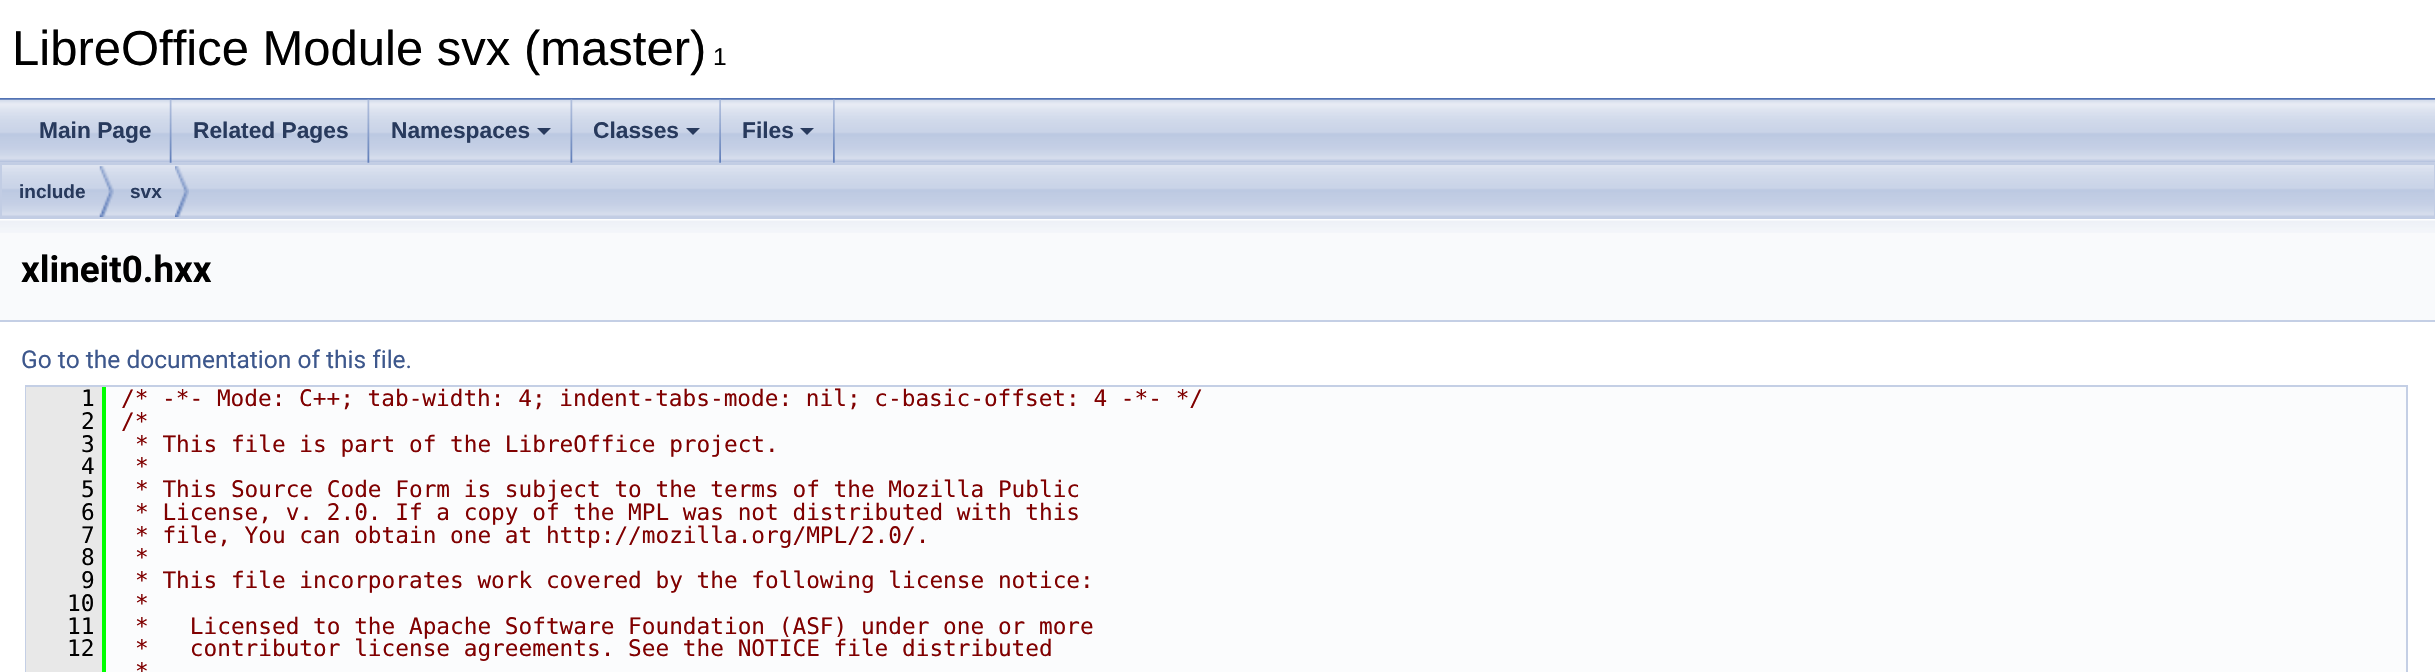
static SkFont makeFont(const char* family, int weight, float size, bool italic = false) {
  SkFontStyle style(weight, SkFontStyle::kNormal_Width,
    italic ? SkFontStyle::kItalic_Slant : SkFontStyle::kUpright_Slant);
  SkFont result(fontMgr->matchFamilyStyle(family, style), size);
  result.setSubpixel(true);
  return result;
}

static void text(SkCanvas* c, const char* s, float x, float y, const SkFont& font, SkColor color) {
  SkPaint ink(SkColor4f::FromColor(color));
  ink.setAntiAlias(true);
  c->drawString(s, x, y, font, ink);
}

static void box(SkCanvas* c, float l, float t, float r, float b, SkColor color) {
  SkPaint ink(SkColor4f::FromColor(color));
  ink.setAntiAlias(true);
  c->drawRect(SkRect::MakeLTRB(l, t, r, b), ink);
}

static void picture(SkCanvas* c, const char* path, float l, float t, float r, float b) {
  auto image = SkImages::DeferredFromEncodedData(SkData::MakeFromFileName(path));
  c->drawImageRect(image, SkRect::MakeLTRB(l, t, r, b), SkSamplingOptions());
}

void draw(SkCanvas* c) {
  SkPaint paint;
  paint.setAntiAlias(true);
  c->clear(0xffffffff);
  box(c, 0, 98, 2435, 100, 0xff5373b4);
  SkFont face1 = makeFont("Liberation Sans", 400, 49);
  text(c, "LibreOffice Module svx (master)", 12, 65, face1, 0xff000000);
  SkFont face2 = makeFont("Liberation Sans", 400, 24.5f);
  text(c, "1", 713, 65, face2, 0xff000000);
  picture(c, "img_06.png", 0, 162, 2435, 217);
  picture(c, "img_01.png", 0, 99, 2435, 163);
  picture(c, "img_02.png", 169, 99, 172, 163);
  SkFont face3 = makeFont("Liberation Sans", 700, 22.75f);
  text(c, "Main Page", 39, 138, face3, 0xff283a5d);
  picture(c, "img_03.png", 367, 99, 370, 163);
  text(c, "Related Pages", 193, 138, face3, 0xff283a5d);
  picture(c, "img_03.png", 570, 99, 573, 163);
  text(c, "Namespaces", 391, 138, face3, 0xff283a5d);
  paint.setColor(0xff283a5d);
  c->drawPath(SkPathBuilder().moveTo(537, 128).lineTo(551, 128).lineTo(544, 135).close().detach(), paint);
  picture(c, "img_04.png", 719, 99, 721, 163);
  text(c, "Classes", 593, 138, face3, 0xff283a5d);
  c->drawPath(SkPathBuilder().moveTo(686, 128).lineTo(700, 128).lineTo(693, 135).close().detach(), paint);
  picture(c, "img_05.png", 833, 99, 835, 163);
  text(c, "Files", 742, 138, face3, 0xff283a5d);
  c->drawPath(SkPathBuilder().moveTo(800, 128).lineTo(814, 128).lineTo(807, 135).close().detach(), paint);
  paint.setStyle(SkPaint::kStroke_Style);
  paint.setStrokeWidth(2);
  paint.setColor(0xffc2cde4);
  c->drawRect(SkRect::MakeLTRB(1, 164, 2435, 218), paint);
  picture(c, "img_07.png", 99, 166, 114, 217);
  SkFont face4 = makeFont("Liberation Sans", 700, 19);
  text(c, "include", 19, 198, face4, 0xff283a5d);
  picture(c, "img_08.png", 175, 166, 189, 217);
  text(c, "svx", 130, 198, face4, 0xff283a5d);
  box(c, 0, 233, 2435, 320, 0xfff9fafc);
  picture(c, "img_09.png", 0, 219, 2435, 233);
  box(c, 0, 320, 2435, 322, 0xffc4cfe5);
  SkFont face5 = makeFont("Roboto", 700, 36.75f);
  text(c, "xlineit0.hxx", 21, 282, face5, 0xff000000);
  SkFont face6 = makeFont("Roboto", 400, 24.5f);
  text(c, "Go to the documentation of this file.", 21, 368, face6, 0xff3d578c);
  box(c, 106, 387, 2406, 672, 0xfffbfcfd);
  paint.setColor(0xffc4cfe5);
  c->drawRect(SkRect::MakeLTRB(26, 386, 2407, 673), paint);
  box(c, 26, 387, 102, 672, 0xffe8e8e8);
  SkFont face7 = makeFont("DejaVu Sans Mono", 400, 22.75f);
  text(c, "1", 81, 406, face7, 0xff000000);
  box(c, 102, 387, 106, 672, 0xff00ff00);
  text(c, "/* -*- Mode: C++; tab-width: 4; indent-tabs-mode: nil; c-basic-offset: 4 -*- */", 121, 406, face7, 0xff800000);
  text(c, "2", 81, 429, face7, 0xff000000);
  text(c, "/*", 121, 429, face7, 0xff800000);
  text(c, "3", 81, 452, face7, 0xff000000);
  text(c, "* This file is part of the LibreOffice project.", 135, 452, face7, 0xff800000);
  text(c, "4", 81, 474, face7, 0xff000000);
  text(c, "*", 135, 474, face7, 0xff800000);
  text(c, "5", 81, 497, face7, 0xff000000);
  text(c, "* This Source Code Form is subject to the terms of the Mozilla Public", 135, 497, face7, 0xff800000);
  text(c, "6", 81, 520, face7, 0xff000000);
  text(c, "* License, v. 2.0. If a copy of the MPL was not distributed with this", 135, 520, face7, 0xff800000);
  text(c, "7", 81, 543, face7, 0xff000000);
  text(c, "* file, You can obtain one at http://mozilla.org/MPL/2.0/.", 135, 543, face7, 0xff800000);
  text(c, "8", 81, 565, face7, 0xff000000);
  text(c, "*", 135, 565, face7, 0xff800000);
  text(c, "9", 81, 588, face7, 0xff000000);
  text(c, "* This file incorporates work covered by the following license notice:", 135, 588, face7, 0xff800000);
  text(c, "10", 67, 611, face7, 0xff000000);
  text(c, "*", 135, 611, face7, 0xff800000);
  text(c, "11", 67, 634, face7, 0xff000000);
  text(c, "*   Licensed to the Apache Software Foundation (ASF) under one or more", 135, 634, face7, 0xff800000);
  text(c, "12", 67, 656, face7, 0xff000000);
  text(c, "*   contributor license agreements. See the NOTICE file distributed", 135, 656, face7, 0xff800000);
  text(c, "*", 135, 679, face7, 0xff800000);
}
